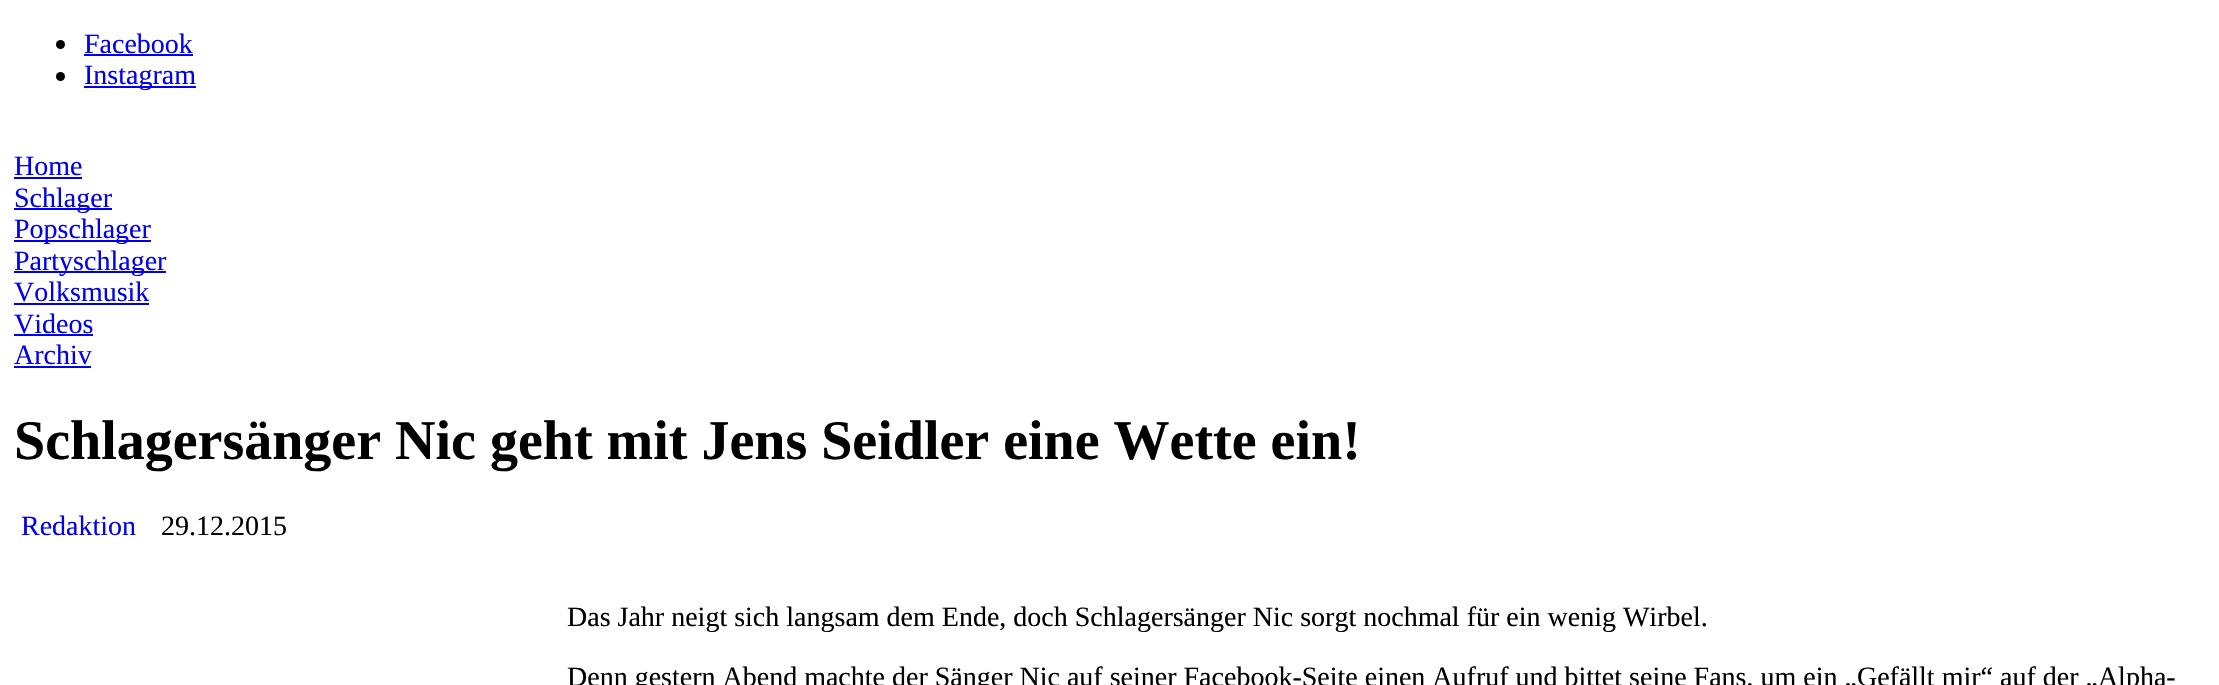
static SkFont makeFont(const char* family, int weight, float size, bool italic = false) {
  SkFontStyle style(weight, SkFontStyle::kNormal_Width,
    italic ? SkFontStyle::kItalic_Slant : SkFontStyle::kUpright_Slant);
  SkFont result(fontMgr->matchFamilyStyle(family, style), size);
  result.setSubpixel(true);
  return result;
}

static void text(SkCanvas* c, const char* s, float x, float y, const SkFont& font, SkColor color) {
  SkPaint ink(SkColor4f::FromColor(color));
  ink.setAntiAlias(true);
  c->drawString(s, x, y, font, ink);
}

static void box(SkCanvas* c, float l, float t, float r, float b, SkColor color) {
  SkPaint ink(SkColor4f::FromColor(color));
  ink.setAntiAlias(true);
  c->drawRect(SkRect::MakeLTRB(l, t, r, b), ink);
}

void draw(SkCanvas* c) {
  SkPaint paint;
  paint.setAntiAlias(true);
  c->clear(0xffffffff);
  paint.setColor(0xff000000);
  c->drawCircle(60.5f, 44.5f, 4.5f, paint);
  SkFont face1 = makeFont("Liberation Serif", 400, 28);
  text(c, "Facebook", 84, 53, face1, 0xff0000ee);
  box(c, 84, 54, 193, 56, 0xff0000ee);
  c->drawCircle(60.5f, 76.5f, 4.5f, paint);
  box(c, 84, 86, 196, 88, 0xff0000ee);
  text(c, "Instagram", 84, 84, face1, 0xff0000ee);
  text(c, "Home", 14, 175, face1, 0xff0000ee);
  box(c, 14, 177, 82, 179, 0xff0000ee);
  box(c, 14, 208, 112, 210, 0xff0000ee);
  text(c, "Schlager", 14, 207, face1, 0xff0000ee);
  box(c, 14, 240, 151, 242, 0xff0000ee);
  text(c, "Popschlager", 14, 238, face1, 0xff0000ee);
  box(c, 14, 271, 166, 273, 0xff0000ee);
  text(c, "Partyschlager", 14, 270, face1, 0xff0000ee);
  text(c, "Volksmusik", 14, 301, face1, 0xff0000ee);
  box(c, 14, 303, 149, 305, 0xff0000ee);
  text(c, "Videos", 14, 333, face1, 0xff0000ee);
  box(c, 14, 334, 93, 336, 0xff0000ee);
  text(c, "Archiv", 14, 364, face1, 0xff0000ee);
  box(c, 14, 366, 91, 368, 0xff0000ee);
  SkFont face2 = makeFont("Liberation Serif", 700, 56);
  text(c, "Schlagersänger Nic geht mit Jens Seidler eine Wette ein!", 14, 459, face2, 0xff000000);
  text(c, "Redaktion", 21, 535, face1, 0xff0000ee);
  text(c, "29.12.2015", 161, 535, face1, 0xff000000);
  text(c, "Das Jahr neigt sich langsam dem Ende, doch Schlagersänger Nic sorgt nochmal für ein wenig Wirbel.", 567, 626, face1, 0xff000000);
  text(c, "Denn gestern Abend machte der Sänger Nic auf seiner Facebook-Seite einen Aufruf und bittet seine Fans, um ein „Gefällt mir“ auf der „Alpha-", 567, 686, face1, 0xff000000);
}
